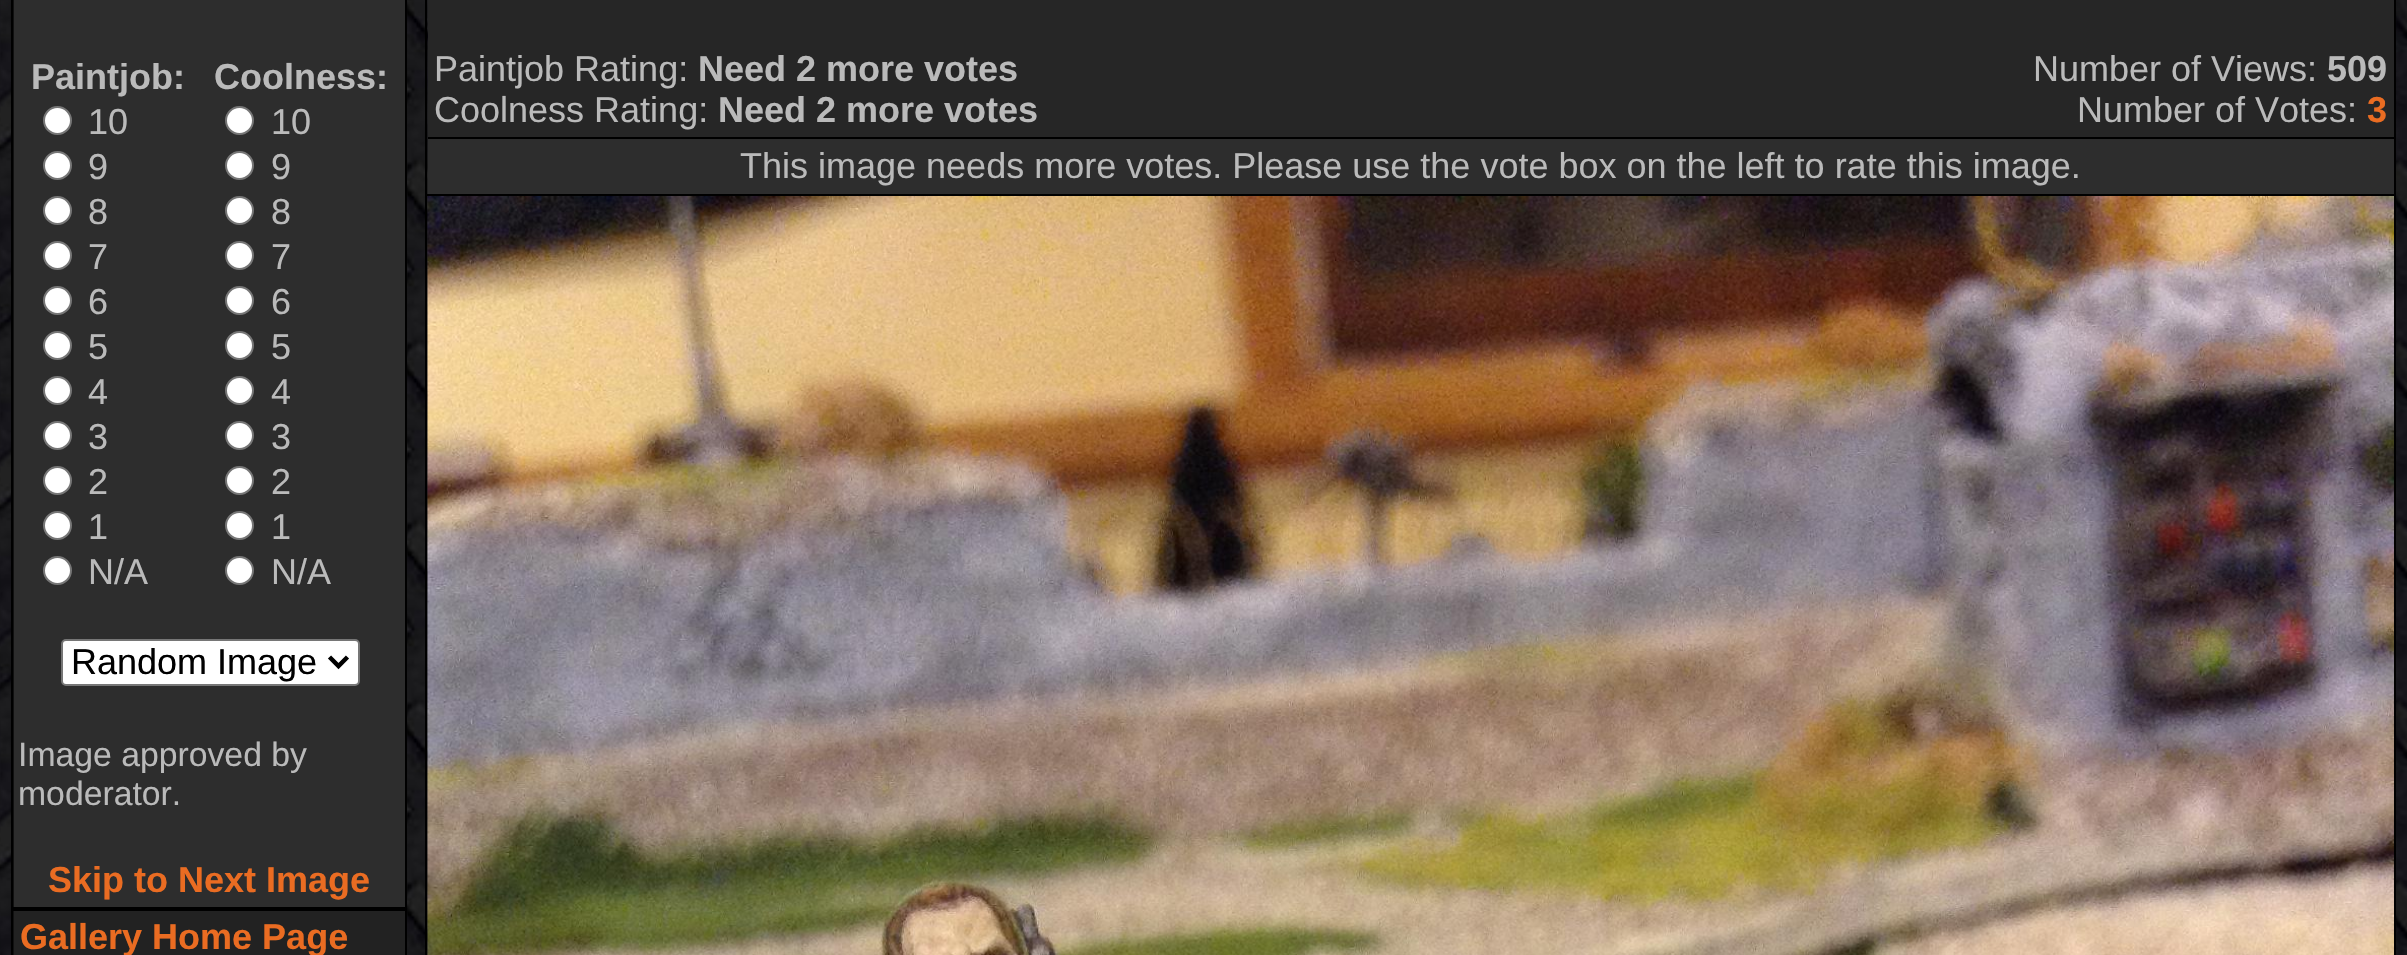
static SkFont makeFont(const char* family, int weight, float size, bool italic = false) {
  SkFontStyle style(weight, SkFontStyle::kNormal_Width,
    italic ? SkFontStyle::kItalic_Slant : SkFontStyle::kUpright_Slant);
  SkFont result(fontMgr->matchFamilyStyle(family, style), size);
  result.setSubpixel(true);
  return result;
}

static void text(SkCanvas* c, const char* s, float x, float y, const SkFont& font, SkColor color) {
  SkPaint ink(SkColor4f::FromColor(color));
  ink.setAntiAlias(true);
  c->drawString(s, x, y, font, ink);
}

static void box(SkCanvas* c, float l, float t, float r, float b, SkColor color) {
  SkPaint ink(SkColor4f::FromColor(color));
  ink.setAntiAlias(true);
  c->drawRect(SkRect::MakeLTRB(l, t, r, b), ink);
}

static void picture(SkCanvas* c, const char* path, float l, float t, float r, float b) {
  auto image = SkImages::DeferredFromEncodedData(SkData::MakeFromFileName(path));
  c->drawImageRect(image, SkRect::MakeLTRB(l, t, r, b), SkSamplingOptions());
}

void draw(SkCanvas* c) {
  SkPaint paint;
  paint.setAntiAlias(true);
  c->clear(0xffffffff);
  picture(c, "img_01.png", 0, 0, 2407, 955);
  box(c, 13, 0, 14, 907, 0xff111111);
  paint.setStyle(SkPaint::kStroke_Style);
  paint.setStrokeWidth(2);
  paint.setColor(0xff000000);
  c->drawRect(SkRect::MakeLTRB(12, -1, 406, 908), paint);
  box(c, 14, 0, 405, 907, 0xff2d2d2d);
  SkFont face1 = makeFont("Liberation Sans", 700, 36);
  text(c, "Paintjob:", 31, 89, face1, 0xffbababa);
  paint.setStyle(SkPaint::kFill_Style);
  paint.setColor(0xffffffff);
  c->drawCircle(57.5f, 120.5f, 13.5f, paint);
  paint.setStyle(SkPaint::kStroke_Style);
  paint.setColor(0xff767676);
  c->drawCircle(57.5f, 120.5f, 13.5f, paint);
  SkFont face2 = makeFont("Liberation Sans", 400, 36);
  text(c, "10", 88, 134, face2, 0xffbababa);
  paint.setStyle(SkPaint::kFill_Style);
  paint.setColor(0xffffffff);
  c->drawCircle(57.5f, 165.5f, 13.5f, paint);
  paint.setStyle(SkPaint::kStroke_Style);
  paint.setColor(0xff767676);
  c->drawCircle(57.5f, 165.5f, 13.5f, paint);
  text(c, "9", 88, 179, face2, 0xffbababa);
  paint.setStyle(SkPaint::kFill_Style);
  paint.setColor(0xffffffff);
  c->drawCircle(57.5f, 210.5f, 13.5f, paint);
  paint.setStyle(SkPaint::kStroke_Style);
  paint.setColor(0xff767676);
  c->drawCircle(57.5f, 210.5f, 13.5f, paint);
  text(c, "8", 88, 224, face2, 0xffbababa);
  paint.setStyle(SkPaint::kFill_Style);
  paint.setColor(0xffffffff);
  c->drawCircle(57.5f, 255.5f, 13.5f, paint);
  paint.setStyle(SkPaint::kStroke_Style);
  paint.setColor(0xff767676);
  c->drawCircle(57.5f, 255.5f, 13.5f, paint);
  text(c, "7", 88, 269, face2, 0xffbababa);
  paint.setStyle(SkPaint::kFill_Style);
  paint.setColor(0xffffffff);
  c->drawCircle(57.5f, 300.5f, 13.5f, paint);
  paint.setStyle(SkPaint::kStroke_Style);
  paint.setColor(0xff767676);
  c->drawCircle(57.5f, 300.5f, 13.5f, paint);
  text(c, "6", 88, 314, face2, 0xffbababa);
  paint.setStyle(SkPaint::kFill_Style);
  paint.setColor(0xffffffff);
  c->drawCircle(57.5f, 345.5f, 13.5f, paint);
  paint.setStyle(SkPaint::kStroke_Style);
  paint.setColor(0xff767676);
  c->drawCircle(57.5f, 345.5f, 13.5f, paint);
  text(c, "5", 88, 359, face2, 0xffbababa);
  paint.setStyle(SkPaint::kFill_Style);
  paint.setColor(0xffffffff);
  c->drawCircle(57.5f, 390.5f, 13.5f, paint);
  paint.setStyle(SkPaint::kStroke_Style);
  paint.setColor(0xff767676);
  c->drawCircle(57.5f, 390.5f, 13.5f, paint);
  text(c, "4", 88, 404, face2, 0xffbababa);
  paint.setStyle(SkPaint::kFill_Style);
  paint.setColor(0xffffffff);
  c->drawCircle(57.5f, 435.5f, 13.5f, paint);
  paint.setStyle(SkPaint::kStroke_Style);
  paint.setColor(0xff767676);
  c->drawCircle(57.5f, 435.5f, 13.5f, paint);
  text(c, "3", 88, 449, face2, 0xffbababa);
  paint.setStyle(SkPaint::kFill_Style);
  paint.setColor(0xffffffff);
  c->drawCircle(57.5f, 480.5f, 13.5f, paint);
  paint.setStyle(SkPaint::kStroke_Style);
  paint.setColor(0xff767676);
  c->drawCircle(57.5f, 480.5f, 13.5f, paint);
  text(c, "2", 88, 494, face2, 0xffbababa);
  paint.setStyle(SkPaint::kFill_Style);
  paint.setColor(0xffffffff);
  c->drawCircle(57.5f, 525.5f, 13.5f, paint);
  paint.setStyle(SkPaint::kStroke_Style);
  paint.setColor(0xff767676);
  c->drawCircle(57.5f, 525.5f, 13.5f, paint);
  text(c, "1", 88, 539, face2, 0xffbababa);
  paint.setStyle(SkPaint::kFill_Style);
  paint.setColor(0xffffffff);
  c->drawCircle(57.5f, 570.5f, 13.5f, paint);
  paint.setStyle(SkPaint::kStroke_Style);
  paint.setColor(0xff767676);
  c->drawCircle(57.5f, 570.5f, 13.5f, paint);
  text(c, "N/A", 88, 584, face2, 0xffbababa);
  text(c, "Coolness:", 214, 89, face1, 0xffbababa);
  paint.setStyle(SkPaint::kFill_Style);
  paint.setColor(0xffffffff);
  c->drawCircle(239.5f, 120.5f, 13.5f, paint);
  paint.setStyle(SkPaint::kStroke_Style);
  paint.setColor(0xff767676);
  c->drawCircle(239.5f, 120.5f, 13.5f, paint);
  text(c, "10", 271, 134, face2, 0xffbababa);
  paint.setStyle(SkPaint::kFill_Style);
  paint.setColor(0xffffffff);
  c->drawCircle(239.5f, 165.5f, 13.5f, paint);
  paint.setStyle(SkPaint::kStroke_Style);
  paint.setColor(0xff767676);
  c->drawCircle(239.5f, 165.5f, 13.5f, paint);
  text(c, "9", 271, 179, face2, 0xffbababa);
  paint.setStyle(SkPaint::kFill_Style);
  paint.setColor(0xffffffff);
  c->drawCircle(239.5f, 210.5f, 13.5f, paint);
  paint.setStyle(SkPaint::kStroke_Style);
  paint.setColor(0xff767676);
  c->drawCircle(239.5f, 210.5f, 13.5f, paint);
  text(c, "8", 271, 224, face2, 0xffbababa);
  paint.setStyle(SkPaint::kFill_Style);
  paint.setColor(0xffffffff);
  c->drawCircle(239.5f, 255.5f, 13.5f, paint);
  paint.setStyle(SkPaint::kStroke_Style);
  paint.setColor(0xff767676);
  c->drawCircle(239.5f, 255.5f, 13.5f, paint);
  text(c, "7", 271, 269, face2, 0xffbababa);
  paint.setStyle(SkPaint::kFill_Style);
  paint.setColor(0xffffffff);
  c->drawCircle(239.5f, 300.5f, 13.5f, paint);
  paint.setStyle(SkPaint::kStroke_Style);
  paint.setColor(0xff767676);
  c->drawCircle(239.5f, 300.5f, 13.5f, paint);
  text(c, "6", 271, 314, face2, 0xffbababa);
  paint.setStyle(SkPaint::kFill_Style);
  paint.setColor(0xffffffff);
  c->drawCircle(239.5f, 345.5f, 13.5f, paint);
  paint.setStyle(SkPaint::kStroke_Style);
  paint.setColor(0xff767676);
  c->drawCircle(239.5f, 345.5f, 13.5f, paint);
  text(c, "5", 271, 359, face2, 0xffbababa);
  paint.setStyle(SkPaint::kFill_Style);
  paint.setColor(0xffffffff);
  c->drawCircle(239.5f, 390.5f, 13.5f, paint);
  paint.setStyle(SkPaint::kStroke_Style);
  paint.setColor(0xff767676);
  c->drawCircle(239.5f, 390.5f, 13.5f, paint);
  text(c, "4", 271, 404, face2, 0xffbababa);
  paint.setStyle(SkPaint::kFill_Style);
  paint.setColor(0xffffffff);
  c->drawCircle(239.5f, 435.5f, 13.5f, paint);
  paint.setStyle(SkPaint::kStroke_Style);
  paint.setColor(0xff767676);
  c->drawCircle(239.5f, 435.5f, 13.5f, paint);
  text(c, "3", 271, 449, face2, 0xffbababa);
  paint.setStyle(SkPaint::kFill_Style);
  paint.setColor(0xffffffff);
  c->drawCircle(239.5f, 480.5f, 13.5f, paint);
  paint.setStyle(SkPaint::kStroke_Style);
  paint.setColor(0xff767676);
  c->drawCircle(239.5f, 480.5f, 13.5f, paint);
  text(c, "2", 271, 494, face2, 0xffbababa);
  paint.setStyle(SkPaint::kFill_Style);
  paint.setColor(0xffffffff);
  c->drawCircle(239.5f, 525.5f, 13.5f, paint);
  paint.setStyle(SkPaint::kStroke_Style);
  paint.setColor(0xff767676);
  c->drawCircle(239.5f, 525.5f, 13.5f, paint);
  text(c, "1", 271, 539, face2, 0xffbababa);
  paint.setStyle(SkPaint::kFill_Style);
  paint.setColor(0xffffffff);
  c->drawCircle(239.5f, 570.5f, 13.5f, paint);
  paint.setStyle(SkPaint::kStroke_Style);
  paint.setColor(0xff767676);
  c->drawCircle(239.5f, 570.5f, 13.5f, paint);
  text(c, "N/A", 271, 584, face2, 0xffbababa);
  paint.setStyle(SkPaint::kFill_Style);
  paint.setColor(0xffffffff);
  c->drawRoundRect(SkRect::MakeLTRB(62, 640, 359, 685), 4, 4, paint);
  paint.setStyle(SkPaint::kStroke_Style);
  paint.setColor(0xff767676);
  c->drawRoundRect(SkRect::MakeLTRB(62, 640, 359, 685), 4, 4, paint);
  paint.setStrokeWidth(4.5f);
  paint.setColor(0xff000000);
  c->drawPath(SkPathBuilder().moveTo(329.5f, 657).lineTo(338.5f, 666).lineTo(347.5f, 657).detach(), paint);
  text(c, "Random Image", 71, 674, face2, 0xff000000);
  SkFont face3 = makeFont("Liberation Sans", 400, 33.75f);
  text(c, "Image approved by", 18, 766, face3, 0xffbababa);
  text(c, "moderator.", 18, 805, face3, 0xffbababa);
  text(c, "Skip to Next Image", 48, 892, face1, 0xffea6c22);
  box(c, 13, 911, 14, 955, 0xff111111);
  paint.setStrokeWidth(2);
  c->drawRect(SkRect::MakeLTRB(12, 910, 406, 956), paint);
  box(c, 14, 911, 405, 955, 0xff222222);
  text(c, "Gallery Home Page", 20, 949, face1, 0xffea6c22);
  c->drawRect(SkRect::MakeLTRB(426, -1, 2395, 195), paint);
  box(c, 428, 0, 2394, 137, 0xff262626);
  text(c, "Paintjob Rating:", 434, 81, face2, 0xffbababa);
  text(c, "Need 2 more votes", 698, 81, face1, 0xffbababa);
  text(c, "Number of Views:", 2033, 81, face2, 0xffbababa);
  text(c, "509", 2327, 81, face1, 0xffbababa);
  text(c, "Coolness Rating:", 434, 122, face2, 0xffbababa);
  text(c, "Need 2 more votes", 718, 122, face1, 0xffbababa);
  text(c, "Number of Votes:", 2077, 122, face2, 0xffbababa);
  text(c, "3", 2367, 122, face1, 0xffea6c22);
  box(c, 428, 139, 2394, 194, 0xff2d2d2d);
  box(c, 428, 137, 2394, 139, 0xff000000);
  text(c, "This image needs more votes. Please use the vote box on the left to rate this image.", 740, 178, face2, 0xffbababa);
  box(c, 2394, 196, 2396, 955, 0xff000000);
  box(c, 425, 196, 427, 955, 0xff000000);
  picture(c, "img_02.png", 427, 196, 2394, 955);
}
